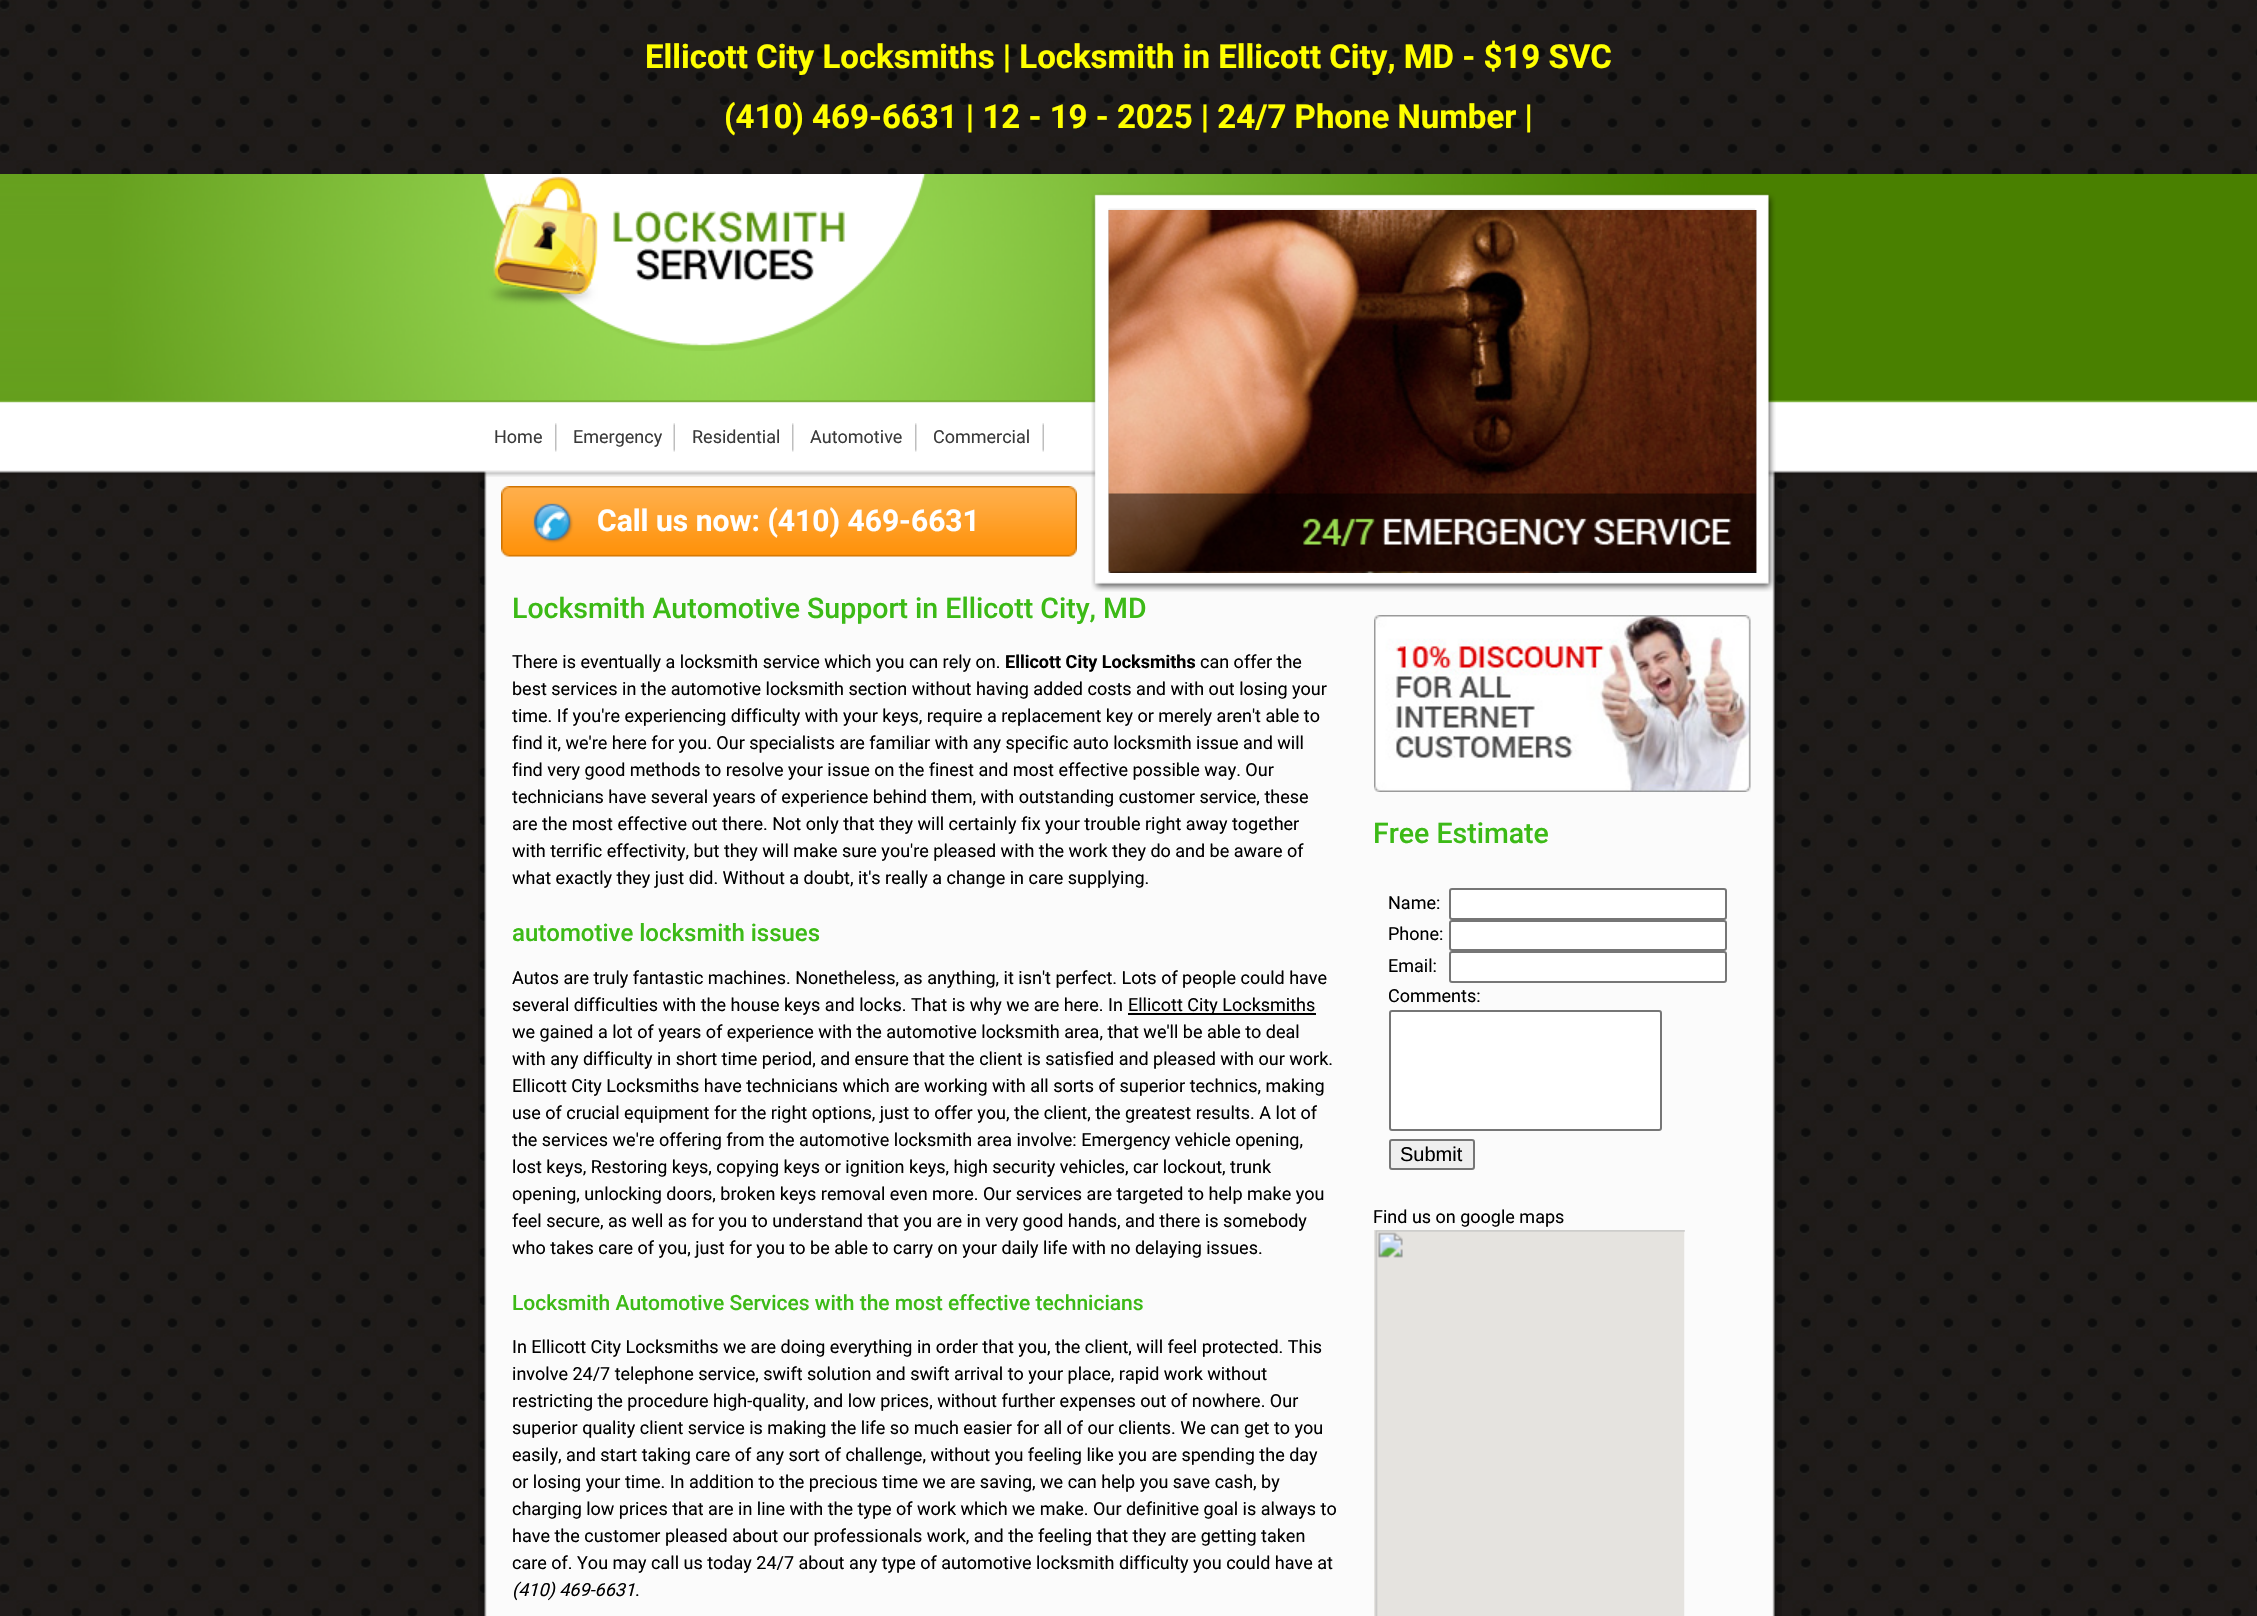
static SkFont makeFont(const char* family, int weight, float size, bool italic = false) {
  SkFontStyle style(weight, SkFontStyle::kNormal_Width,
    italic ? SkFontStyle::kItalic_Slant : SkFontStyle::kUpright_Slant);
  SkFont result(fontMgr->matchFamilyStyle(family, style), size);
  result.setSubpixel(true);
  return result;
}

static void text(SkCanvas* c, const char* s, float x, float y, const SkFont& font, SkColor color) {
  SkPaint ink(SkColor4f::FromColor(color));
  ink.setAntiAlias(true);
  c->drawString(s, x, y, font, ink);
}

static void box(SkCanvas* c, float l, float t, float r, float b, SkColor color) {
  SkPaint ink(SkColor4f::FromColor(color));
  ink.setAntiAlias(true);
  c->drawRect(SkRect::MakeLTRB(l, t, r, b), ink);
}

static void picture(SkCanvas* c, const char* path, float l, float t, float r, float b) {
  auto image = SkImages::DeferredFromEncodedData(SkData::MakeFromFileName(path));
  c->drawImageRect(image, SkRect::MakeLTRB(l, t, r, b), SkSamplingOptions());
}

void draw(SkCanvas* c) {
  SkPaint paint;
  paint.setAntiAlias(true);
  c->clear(0xffffffff);
  picture(c, "img_01.png", 0, 0, 2257, 1616);
  SkFont face1 = makeFont("Roboto", 700, 33);
  text(c, "Ellicott City Locksmiths | Locksmith in Ellicott City, MD - $19 SVC", 645, 68, face1, 0xffffff00);
  text(c, "(410) 469-6631 | 12 - 19 - 2025 | 24/7 Phone Number |", 724, 128, face1, 0xffffff00);
  picture(c, "img_09.png", 478, 471, 1782, 1616);
  picture(c, "img_02.png", 0, 174, 2257, 477);
  picture(c, "img_03.png", 483, 174, 926, 351);
  picture(c, "img_04.png", 1091, 192, 1776, 592);
  picture(c, "img_05.png", 1108, 210, 1757, 573);
  picture(c, "img_06.png", 1108, 210, 1757, 573);
  picture(c, "img_07.png", 555, 423, 557, 452);
  SkFont face2 = makeFont("Roboto", 400, 18);
  text(c, "Home", 494, 443, face2, 0xff3a3a3a);
  picture(c, "img_08.png", 673, 423, 675, 452);
  text(c, "Emergency", 573, 443, face2, 0xff3a3a3a);
  picture(c, "img_07.png", 792, 423, 794, 452);
  text(c, "Residential", 692, 443, face2, 0xff3a3a3a);
  picture(c, "img_07.png", 915, 423, 917, 452);
  text(c, "Automotive", 810, 443, face2, 0xff3a3a3a);
  picture(c, "img_08.png", 1042, 423, 1044, 452);
  text(c, "Commercial", 933, 443, face2, 0xff3a3a3a);
  picture(c, "img_10.png", 501, 486, 1077, 557);
  SkFont face3 = makeFont("Roboto", 700, 30);
  text(c, "Call us now: (410) 469-6631", 597, 531, face3, 0xffffffff);
  SkFont face4 = makeFont("Roboto", 500, 28.5f);
  text(c, "Locksmith Automotive Support in Ellicott City, MD", 512, 618, face4, 0xff3cba16);
  text(c, "There is eventually a locksmith service which you can rely on.", 512, 668, face2, 0xff000000);
  SkFont face5 = makeFont("Roboto", 700, 18);
  text(c, "Ellicott City Locksmiths", 1005, 668, face5, 0xff000000);
  text(c, "can offer the", 1200, 668, face2, 0xff000000);
  text(c, "best services in the automotive locksmith section without having added costs and with out losing your", 512, 695, face2, 0xff000000);
  text(c, "time. If you're experiencing difficulty with your keys, require a replacement key or merely aren't able to", 512, 722, face2, 0xff000000);
  text(c, "find it, we're here for you. Our specialists are familiar with any specific auto locksmith issue and will", 512, 749, face2, 0xff000000);
  text(c, "find very good methods to resolve your issue on the finest and most effective possible way. Our", 512, 776, face2, 0xff000000);
  text(c, "technicians have several years of experience behind them, with outstanding customer service, these", 512, 803, face2, 0xff000000);
  text(c, "are the most effective out there. Not only that they will certainly fix your trouble right away together", 512, 830, face2, 0xff000000);
  text(c, "with terrific effectivity, but they will make sure you're pleased with the work they do and be aware of", 512, 857, face2, 0xff000000);
  text(c, "what exactly they just did. Without a doubt, it's really a change in care supplying.", 512, 884, face2, 0xff000000);
  SkFont face6 = makeFont("Roboto", 500, 24);
  text(c, "automotive locksmith issues", 512, 941, face6, 0xff3cba16);
  text(c, "Autos are truly fantastic machines. Nonetheless, as anything, it isn't perfect. Lots of people could have", 512, 984, face2, 0xff000000);
  text(c, "several difficulties with the house keys and locks. That is why we are here. In", 512, 1011, face2, 0xff000000);
  box(c, 1128, 1013, 1316, 1015, 0xff000000);
  text(c, "Ellicott City Locksmiths", 1128, 1011, face2, 0xff000000);
  text(c, "we gained a lot of years of experience with the automotive locksmith area, that we'll be able to deal", 512, 1038, face2, 0xff000000);
  text(c, "with any difficulty in short time period, and ensure that the client is satisfied and pleased with our work.", 512, 1065, face2, 0xff000000);
  text(c, "Ellicott City Locksmiths have technicians which are working with all sorts of superior technics, making", 512, 1092, face2, 0xff000000);
  text(c, "use of crucial equipment for the right options, just to offer you, the client, the greatest results. A lot of", 512, 1119, face2, 0xff000000);
  text(c, "the services we're offering from the automotive locksmith area involve: Emergency vehicle opening,", 512, 1146, face2, 0xff000000);
  text(c, "lost keys, Restoring keys, copying keys or ignition keys, high security vehicles, car lockout, trunk", 512, 1173, face2, 0xff000000);
  text(c, "opening, unlocking doors, broken keys removal even more. Our services are targeted to help make you", 512, 1200, face2, 0xff000000);
  text(c, "feel secure, as well as for you to understand that you are in very good hands, and there is somebody", 512, 1227, face2, 0xff000000);
  text(c, "who takes care of you, just for you to be able to carry on your daily life with no delaying issues.", 512, 1254, face2, 0xff000000);
  SkFont face7 = makeFont("Roboto", 500, 21);
  text(c, "Locksmith Automotive Services with the most effective technicians", 512, 1310, face7, 0xff3cba16);
  text(c, "In Ellicott City Locksmiths we are doing everything in order that you, the client, will feel protected. This", 512, 1353, face2, 0xff000000);
  text(c, "involve 24/7 telephone service, swift solution and swift arrival to your place, rapid work without", 512, 1380, face2, 0xff000000);
  text(c, "restricting the procedure high-quality, and low prices, without further expenses out of nowhere. Our", 512, 1407, face2, 0xff000000);
  text(c, "superior quality client service is making the life so much easier for all of our clients. We can get to you", 512, 1434, face2, 0xff000000);
  text(c, "easily, and start taking care of any sort of challenge, without you feeling like you are spending the day", 512, 1461, face2, 0xff000000);
  text(c, "or losing your time. In addition to the precious time we are saving, we can help you save cash, by", 512, 1488, face2, 0xff000000);
  text(c, "charging low prices that are in line with the type of work which we make. Our definitive goal is always to", 512, 1515, face2, 0xff000000);
  text(c, "have the customer pleased about our professionals work, and the feeling that they are getting taken", 512, 1542, face2, 0xff000000);
  text(c, "care of. You may call us today 24/7 about any type of automotive locksmith difficulty you could have at", 512, 1569, face2, 0xff000000);
  SkFont face8 = makeFont("Roboto", 400, 18, true);
  text(c, "(410) 469-6631", 512, 1596, face8, 0xff000000);
  text(c, ".", 635, 1596, face2, 0xff000000);
  picture(c, "img_11.png", 1374, 615, 1751, 792);
  text(c, "Free Estimate", 1373, 843, face4, 0xff3cba16);
  text(c, "Name:", 1388, 909, face2, 0xff000000);
  paint.setColor(0xffffffff);
  c->drawRoundRect(SkRect::MakeLTRB(1450, 889, 1726, 919), 2, 2, paint);
  paint.setStyle(SkPaint::kStroke_Style);
  paint.setStrokeWidth(2);
  paint.setColor(0xff767676);
  c->drawRoundRect(SkRect::MakeLTRB(1450, 889, 1726, 919), 2, 2, paint);
  text(c, "Phone:", 1388, 940, face2, 0xff000000);
  paint.setStyle(SkPaint::kFill_Style);
  paint.setColor(0xffffffff);
  c->drawRoundRect(SkRect::MakeLTRB(1450, 921, 1726, 950), 2, 2, paint);
  paint.setStyle(SkPaint::kStroke_Style);
  paint.setColor(0xff767676);
  c->drawRoundRect(SkRect::MakeLTRB(1450, 921, 1726, 950), 2, 2, paint);
  text(c, "Email:", 1388, 972, face2, 0xff000000);
  paint.setStyle(SkPaint::kFill_Style);
  paint.setColor(0xffffffff);
  c->drawRoundRect(SkRect::MakeLTRB(1450, 952, 1726, 982), 2, 2, paint);
  paint.setStyle(SkPaint::kStroke_Style);
  paint.setColor(0xff767676);
  c->drawRoundRect(SkRect::MakeLTRB(1450, 952, 1726, 982), 2, 2, paint);
  text(c, "Comments:", 1388, 1002, face2, 0xff000000);
  paint.setStyle(SkPaint::kFill_Style);
  paint.setColor(0xffffffff);
  c->drawRoundRect(SkRect::MakeLTRB(1390, 1011, 1661, 1130), 2, 2, paint);
  paint.setStyle(SkPaint::kStroke_Style);
  paint.setColor(0xff767676);
  c->drawRoundRect(SkRect::MakeLTRB(1390, 1011, 1661, 1130), 2, 2, paint);
  paint.setStyle(SkPaint::kFill_Style);
  paint.setColor(0xffefefef);
  c->drawRoundRect(SkRect::MakeLTRB(1390, 1140, 1474, 1169), 2, 2, paint);
  paint.setStyle(SkPaint::kStroke_Style);
  paint.setColor(0xff767676);
  c->drawRoundRect(SkRect::MakeLTRB(1390, 1140, 1474, 1169), 2, 2, paint);
  SkFont face9 = makeFont("Liberation Sans", 400, 20);
  text(c, "Submit", 1400, 1161, face9, 0xff000000);
  text(c, "Find us on google maps", 1373, 1223, face2, 0xff000000);
  picture(c, "img_12.png", 1374, 1230, 1685, 1616);
}
